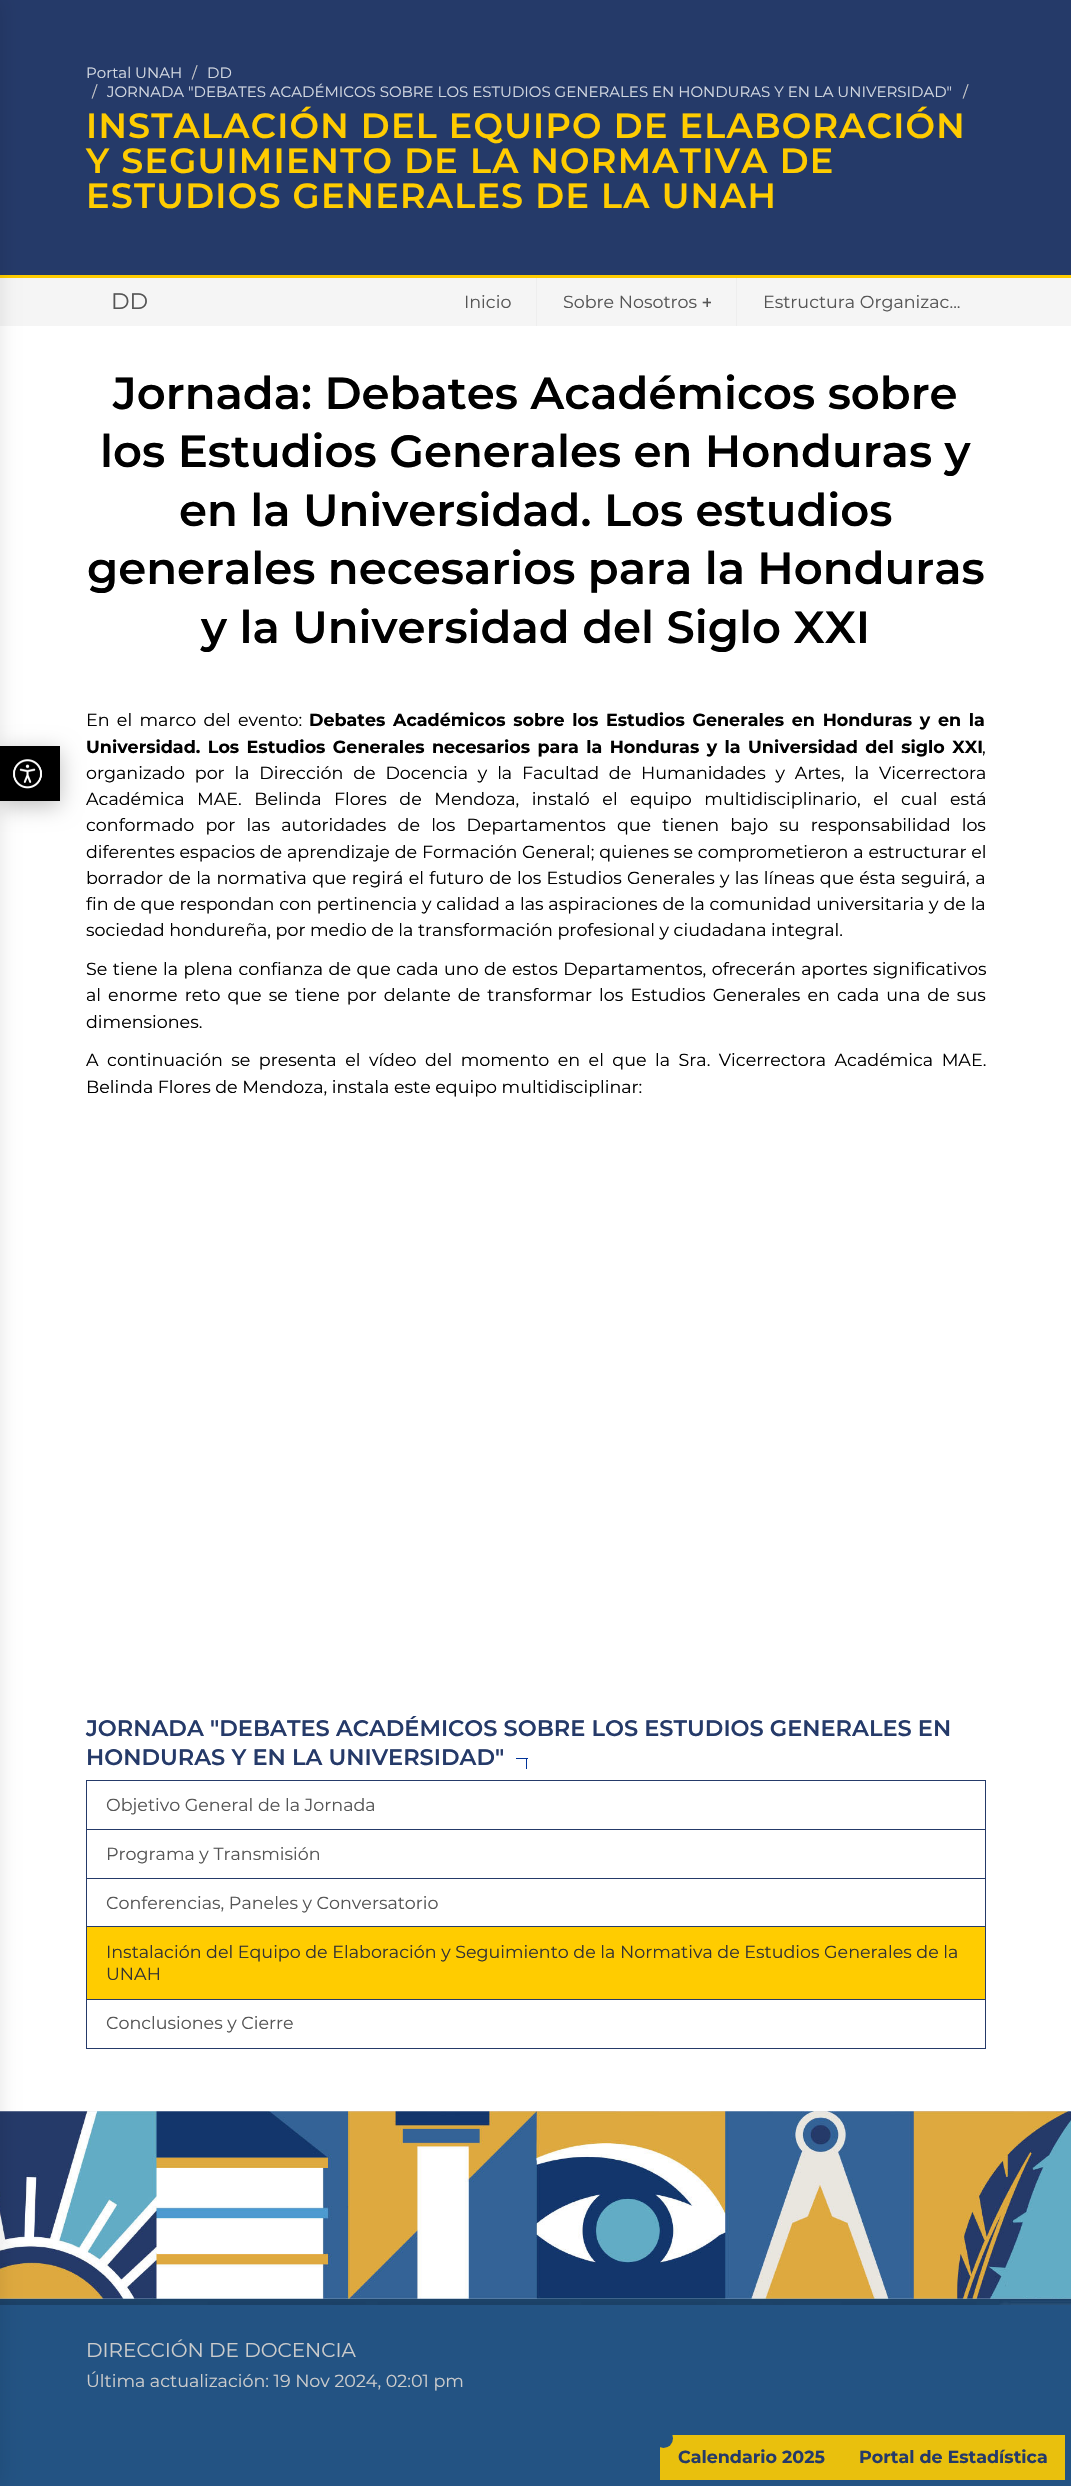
static SkFont makeFont(const char* family, int weight, float size, bool italic = false) {
  SkFontStyle style(weight, SkFontStyle::kNormal_Width,
    italic ? SkFontStyle::kItalic_Slant : SkFontStyle::kUpright_Slant);
  SkFont result(fontMgr->matchFamilyStyle(family, style), size);
  result.setSubpixel(true);
  return result;
}

static void text(SkCanvas* c, const char* s, float x, float y, const SkFont& font, SkColor color) {
  SkPaint ink(SkColor4f::FromColor(color));
  ink.setAntiAlias(true);
  c->drawString(s, x, y, font, ink);
}

static void spacedText(SkCanvas* c, const char* s, float x, float y, const SkFont& font, const SkPaint& ink, float letter, float word) {
  std::vector<SkGlyphID> glyphs(font.countText(s, strlen(s), SkTextEncoding::kUTF8));
  std::vector<float> xs(glyphs.size());
  font.textToGlyphs(s, strlen(s), SkTextEncoding::kUTF8, glyphs);
  font.getXPos(glyphs, xs, x);
  float extra = 0;
  for (size_t i = 0; i < glyphs.size(); i++) {
    xs[i] += extra;
    extra += letter + word * (glyphs[i] == font.unicharToGlyph(' '));
  }
  c->drawTextBlob(SkTextBlob::MakeFromPosHGlyphs(glyphs, xs, y, font), 0, 0, ink);
}

static void box(SkCanvas* c, float l, float t, float r, float b, SkColor color) {
  SkPaint ink(SkColor4f::FromColor(color));
  ink.setAntiAlias(true);
  c->drawRect(SkRect::MakeLTRB(l, t, r, b), ink);
}

static void picture(SkCanvas* c, const char* path, float l, float t, float r, float b) {
  auto image = SkImages::DeferredFromEncodedData(SkData::MakeFromFileName(path));
  c->drawImageRect(image, SkRect::MakeLTRB(l, t, r, b), SkSamplingOptions());
}

void draw(SkCanvas* c) {
  SkPaint paint;
  paint.setAntiAlias(true);
  c->clear(0xffffffff);
  box(c, 0, 0, 1071, 275, 0xff253a69);
  box(c, 0, 275, 1071, 278, 0xffffcc00);
  box(c, 0, 278, 1071, 326, 0xfff5f5f5);
  picture(c, "img_02.png", 0, 2111, 1071, 2299);
  box(c, 0, 2305, 1071, 2486, 0xff235383);
  picture(c, "img_03.png", 0, 2298, 1071, 2305);
  box(c, 0, 2299, 1071, 2305, 0x33000000);
  paint.setColor(0x1a000000);
  paint.setMaskFilter(SkMaskFilter::MakeBlur(kNormal_SkBlurStyle, 9.5f));
  c->drawRect(SkRect::MakeLTRB(-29, 0, 0, 2486), paint);
  paint.setMaskFilter(nullptr);
  paint.setColor(0x40000000);
  paint.setMaskFilter(SkMaskFilter::MakeBlur(kNormal_SkBlurStyle, 11));
  c->drawRect(SkRect::MakeLTRB(0, 751, 60, 806), paint);
  paint.setMaskFilter(nullptr);
  box(c, 0, 746, 60, 801, 0xff000000);
  picture(c, "img_01.png", 13, 759, 42, 789);
  SkFont face1 = makeFont("Montserrat", 400, 15);
  text(c, "Portal UNAH", 86, 78, face1, 0xffd3d8e1);
  text(c, "/", 192, 78, face1, 0xffcccccc);
  text(c, "DD", 207, 78, face1, 0xffd3d8e1);
  text(c, "/", 92, 97, face1, 0xffcccccc);
  text(c, "JORNADA \"DEBATES ACADÉMICOS SOBRE LOS ESTUDIOS GENERALES EN HONDURAS Y EN LA UNIVERSIDAD\"", 107, 97, face1, 0xffd3d8e1);
  text(c, "/", 963, 97, face1, 0xffcccccc);
  SkFont face2 = makeFont("Montserrat", 600, 35);
  paint.setColor(0xffffcc00);
  spacedText(c, "INSTALACIÓN DEL EQUIPO DE ELABORACIÓN", 86, 138, face2, paint, 1.25f, 0);
  spacedText(c, "Y SEGUIMIENTO DE LA NORMATIVA DE", 86, 173, face2, paint, 1.25f, 0);
  spacedText(c, "ESTUDIOS GENERALES DE LA UNAH", 86, 208, face2, paint, 1.25f, 0);
  SkFont face3 = makeFont("Montserrat", 400, 22.5f);
  text(c, "DD", 111, 309, face3, 0xff555555);
  SkFont face4 = makeFont("Montserrat", 400, 17.5f);
  text(c, "Inicio", 464, 308, face4, 0xff555555);
  box(c, 536, 278, 537, 326, 0xffeeeeee);
  text(c, "Sobre Nosotros", 563, 308, face4, 0xff555555);
  c->save();
  c->clipRect(SkRect::MakeLTRB(701, 293, 711, 313));
  SkFont face5 = makeFont("DejaVu Sans Mono", 400, 17.5f);
  text(c, "+", 702, 308, face5, 0xff555555);
  c->restore();
  box(c, 736, 278, 737, 326, 0xffeeeeee);
  text(c, "Estructura Organizac...", 763, 308, face4, 0xff555555);
  SkFont face6 = makeFont("Montserrat", 600, 45);
  text(c, "Jornada: Debates Académicos sobre", 113, 409, face6, 0xff000000);
  text(c, "los Estudios Generales en Honduras y", 100, 467, face6, 0xff000000);
  text(c, "en la Universidad. Los estudios", 179, 526, face6, 0xff000000);
  text(c, "generales necesarios para la Honduras", 87, 584, face6, 0xff000000);
  text(c, "y la Universidad del Siglo XXI", 201, 643, face6, 0xff000000);
  paint.setColor(0xff000000);
  spacedText(c, "En el marco del evento:", 86, 726, face4, paint, 0, 2.75f);
  SkFont face7 = makeFont("Montserrat", 700, 17.5f);
  spacedText(c, "Debates Académicos sobre los Estudios Generales en Honduras y en la", 309, 726, face7, paint, 0, 2.75f);
  spacedText(c, "Universidad. Los Estudios Generales necesarios para la Honduras y la Universidad del siglo XXI", 86, 753, face7, paint, 0, 2.5f);
  text(c, ",", 982, 753, face4, 0xff000000);
  spacedText(c, "organizado por la Dirección de Docencia y la Facultad de Humanidades y Artes, la Vicerrectora", 86, 779, face4, paint, 0, 5.25f);
  spacedText(c, "Académica MAE. Belinda Flores de Mendoza, instaló el equipo multidisciplinario, el cual está", 86, 805, face4, paint, 0, 7.9f);
  spacedText(c, "conformado por las autoridades de los Departamentos que tienen bajo su responsabilidad los", 86, 831, face4, paint, 0, 6.6f);
  spacedText(c, "diferentes espacios de aprendizaje de Formación General; quienes se comprometieron a estructurar el", 86, 858, face4, paint, 0, 0.25f);
  spacedText(c, "borrador de la normativa que regirá el futuro de los Estudios Generales y las líneas que ésta seguirá, a", 86, 884, face4, paint, 0, 0.75f);
  spacedText(c, "fin de que respondan con pertinencia y calidad a las aspiraciones de la comunidad universitaria y de la", 86, 910, face4, paint, 0, 0.25f);
  text(c, "sociedad hondureña, por medio de la transformación profesional y ciudadana integral.", 86, 936, face4, 0xff000000);
  spacedText(c, "Se tiene la plena confianza de que cada uno de estos Departamentos, ofrecerán aportes significativos", 86, 975, face4, paint, 0, 0.9f);
  spacedText(c, "al enorme reto que se tiene por delante de transformar los Estudios Generales en cada una de sus", 86, 1001, face4, paint, 0, 2.5f);
  text(c, "dimensiones.", 86, 1028, face4, 0xff000000);
  spacedText(c, "A continuación se presenta el vídeo del momento en el que la Sra. Vicerrectora Académica MAE.", 86, 1066, face4, paint, 0, 3.9f);
  text(c, "Belinda Flores de Mendoza, instala este equipo multidisciplinar:", 86, 1093, face4, 0xff000000);
  SkFont face8 = makeFont("Montserrat", 600, 22.5f);
  text(c, "JORNADA \"DEBATES ACADÉMICOS SOBRE LOS ESTUDIOS GENERALES EN", 86, 1736, face8, 0xff253a69);
  text(c, "HONDURAS Y EN LA UNIVERSIDAD\"", 86, 1765, face8, 0xff253a69);
  box(c, 516, 1758, 528, 1759, 0xff003399);
  box(c, 526, 1758, 527, 1769, 0xff003399);
  paint.setStyle(SkPaint::kStroke_Style);
  paint.setStrokeWidth(1);
  paint.setColor(0xff253a69);
  c->drawRect(SkRect::MakeLTRB(86.5f, 1780.5f, 985.5f, 1829.5f), paint);
  text(c, "Objetivo General de la Jornada", 106, 1811, face4, 0xff555555);
  c->drawRect(SkRect::MakeLTRB(86.5f, 1829.5f, 985.5f, 1878.5f), paint);
  text(c, "Programa y Transmisión", 106, 1860, face4, 0xff555555);
  c->drawRect(SkRect::MakeLTRB(86.5f, 1878.5f, 985.5f, 1927.5f), paint);
  text(c, "Conferencias, Paneles y Conversatorio", 106, 1909, face4, 0xff555555);
  c->drawRect(SkRect::MakeLTRB(86.5f, 1999.5f, 985.5f, 2048.5f), paint);
  paint.setStyle(SkPaint::kFill_Style);
  paint.setColor(0xffffcc00);
  c->drawRect(SkRect::MakeLTRB(86.5f, 1926.5f, 985.5f, 1999.5f), paint);
  paint.setStyle(SkPaint::kStroke_Style);
  paint.setColor(0xff253a69);
  c->drawRect(SkRect::MakeLTRB(86.5f, 1926.5f, 985.5f, 1999.5f), paint);
  text(c, "Instalación del Equipo de Elaboración y Seguimiento de la Normativa de Estudios Generales de la", 106, 1958, face4, 0xff333333);
  text(c, "UNAH", 106, 1980, face4, 0xff333333);
  text(c, "Conclusiones y Cierre", 106, 2029, face4, 0xff555555);
  SkFont face9 = makeFont("Montserrat", 400, 20);
  text(c, "DIRECCIÓN DE DOCENCIA", 86, 2357, face9, 0xffcccccc);
  text(c, "Última actualización: 19 Nov 2024, 02:01 pm", 86, 2387, face4, 0xffcccccc);
  box(c, 660, 2435, 1065, 2480, 0xffe9c00d);
  paint.setStyle(SkPaint::kFill_Style);
  paint.setColor(0xff235383);
  c->drawCircle(663.5f, 2438.5f, 9.5f, paint);
  text(c, "Calendario 2025", 678, 2463, face7, 0xff253a69);
  text(c, "Portal de Estadística", 859, 2463, face7, 0xff253a69);
}
